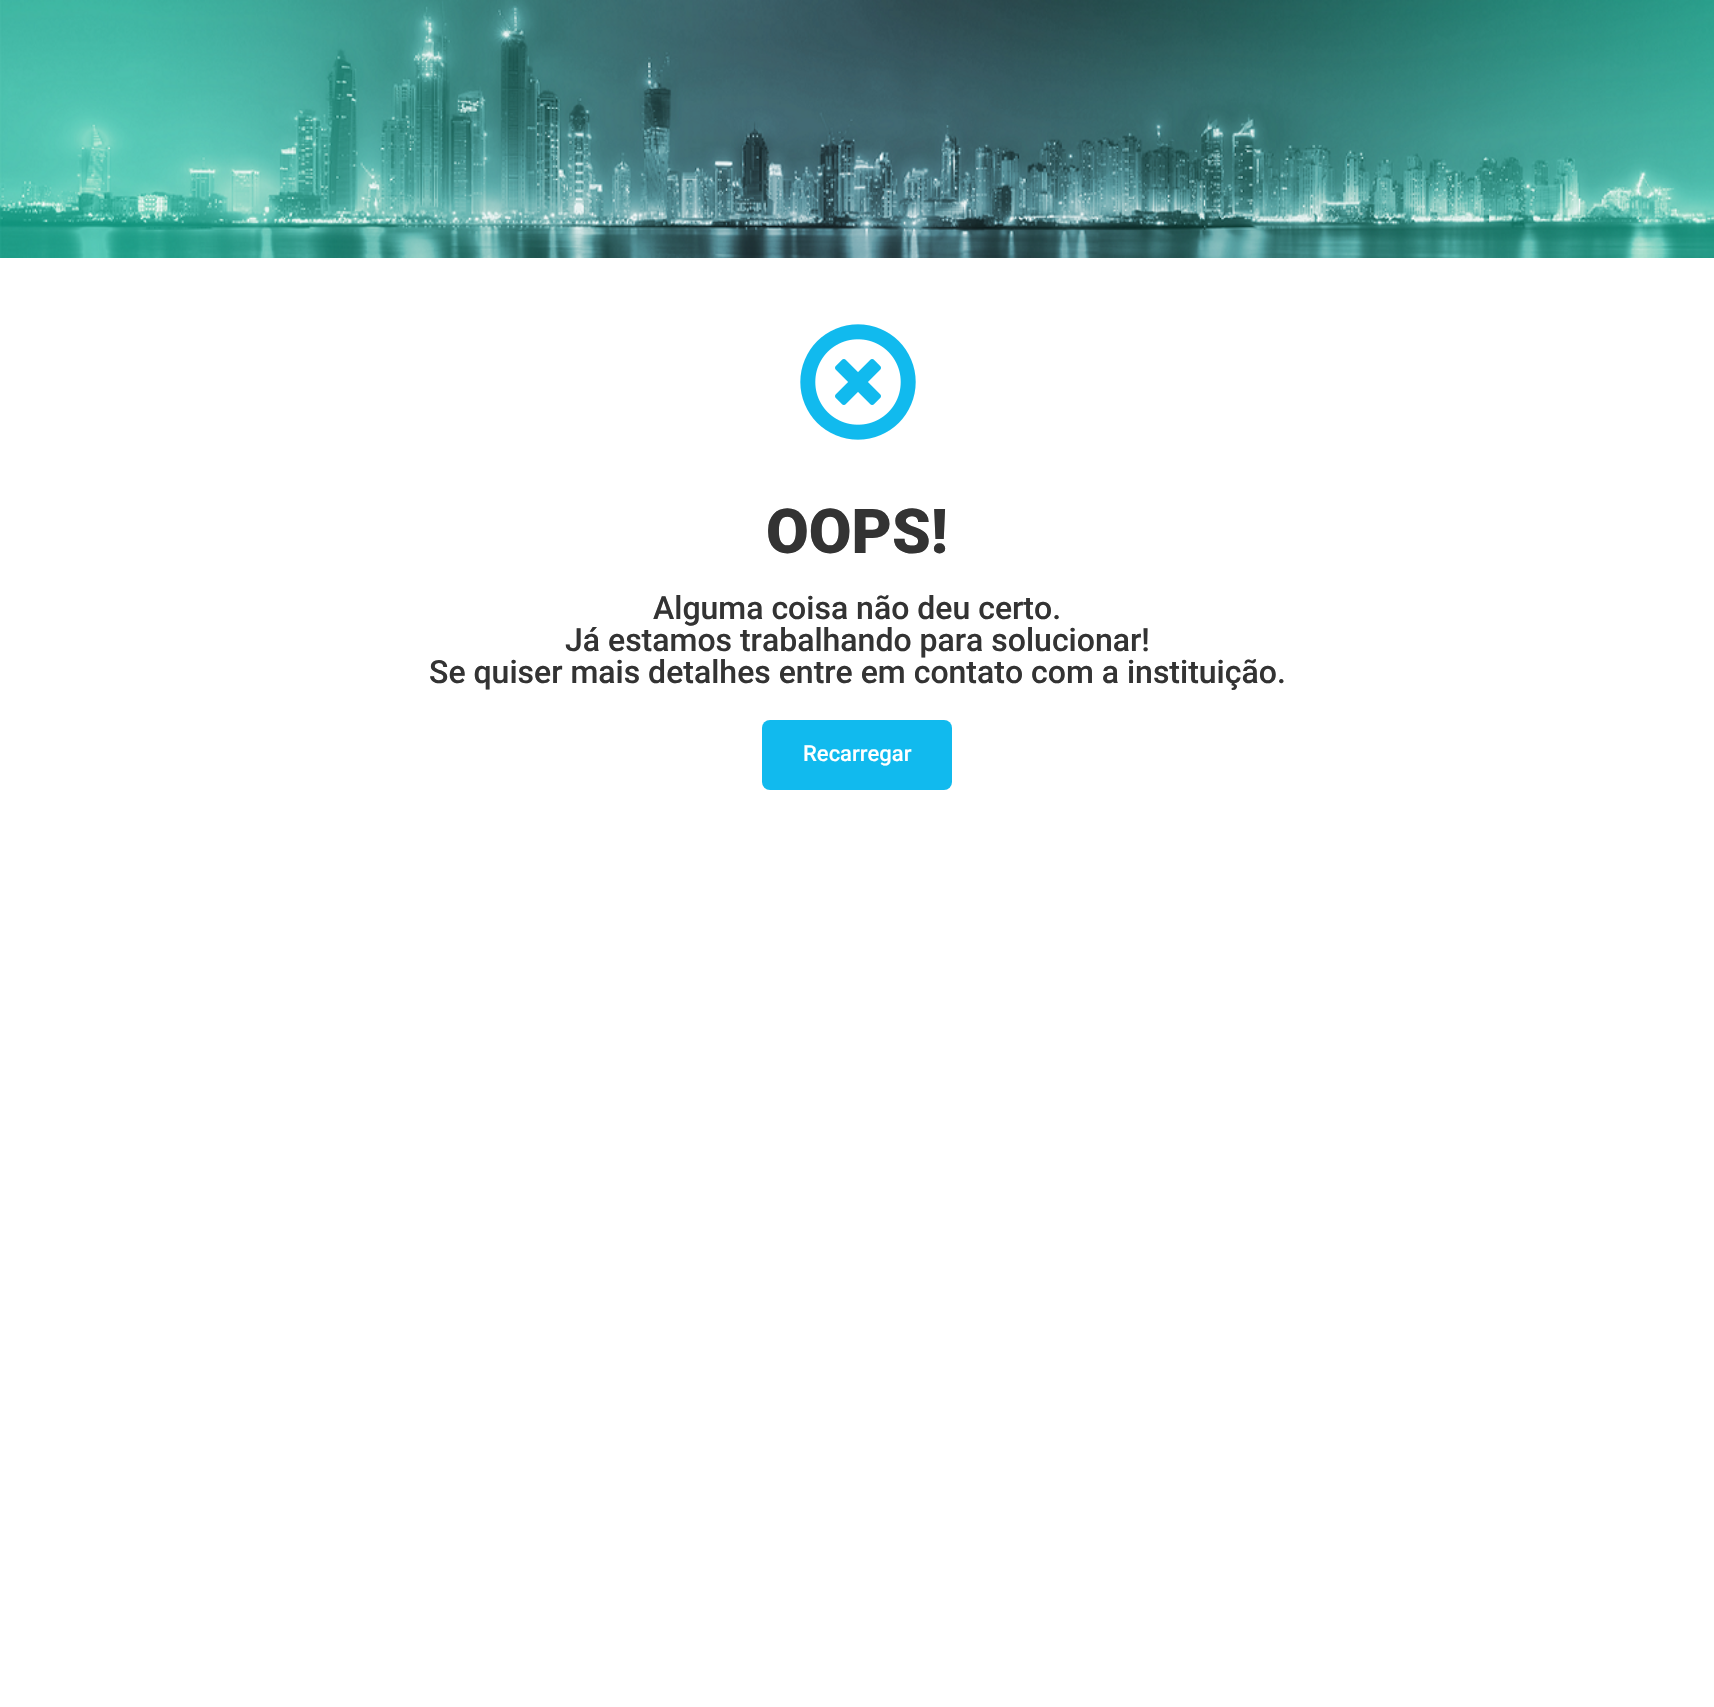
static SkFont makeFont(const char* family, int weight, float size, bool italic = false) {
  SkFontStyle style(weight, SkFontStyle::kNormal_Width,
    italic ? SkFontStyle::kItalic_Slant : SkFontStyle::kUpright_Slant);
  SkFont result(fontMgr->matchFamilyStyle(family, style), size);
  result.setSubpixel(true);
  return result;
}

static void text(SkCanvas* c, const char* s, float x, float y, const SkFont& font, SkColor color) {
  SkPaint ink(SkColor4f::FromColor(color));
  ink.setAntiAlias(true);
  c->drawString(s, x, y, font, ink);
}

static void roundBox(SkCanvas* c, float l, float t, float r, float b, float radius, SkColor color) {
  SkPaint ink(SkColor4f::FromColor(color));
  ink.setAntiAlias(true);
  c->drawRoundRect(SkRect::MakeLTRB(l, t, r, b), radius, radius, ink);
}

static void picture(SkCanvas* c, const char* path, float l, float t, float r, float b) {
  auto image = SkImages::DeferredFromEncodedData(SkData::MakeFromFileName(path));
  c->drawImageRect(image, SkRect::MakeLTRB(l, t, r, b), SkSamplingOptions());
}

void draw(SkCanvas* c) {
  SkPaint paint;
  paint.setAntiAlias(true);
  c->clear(0xffffffff);
  picture(c, "img_01.png", 0, 0, 1714, 258);
  picture(c, "img_02.png", 800, 324, 916, 440);
  SkFont face1 = makeFont("Roboto", 900, 62);
  text(c, "OOPS!", 766, 553, face1, 0xff333333);
  SkFont face2 = makeFont("Roboto", 500, 32);
  text(c, "Alguma coisa não deu certo.", 653, 619, face2, 0xff333333);
  text(c, "Já estamos trabalhando para solucionar!", 565, 651, face2, 0xff333333);
  text(c, "Se quiser mais detalhes entre em contato com a instituição.", 429, 683, face2, 0xff333333);
  roundBox(c, 762, 720, 952, 790, 8, 0xff11baee);
  SkFont face3 = makeFont("Roboto", 500, 22);
  text(c, "Recarregar", 803, 761, face3, 0xffffffff);
}
